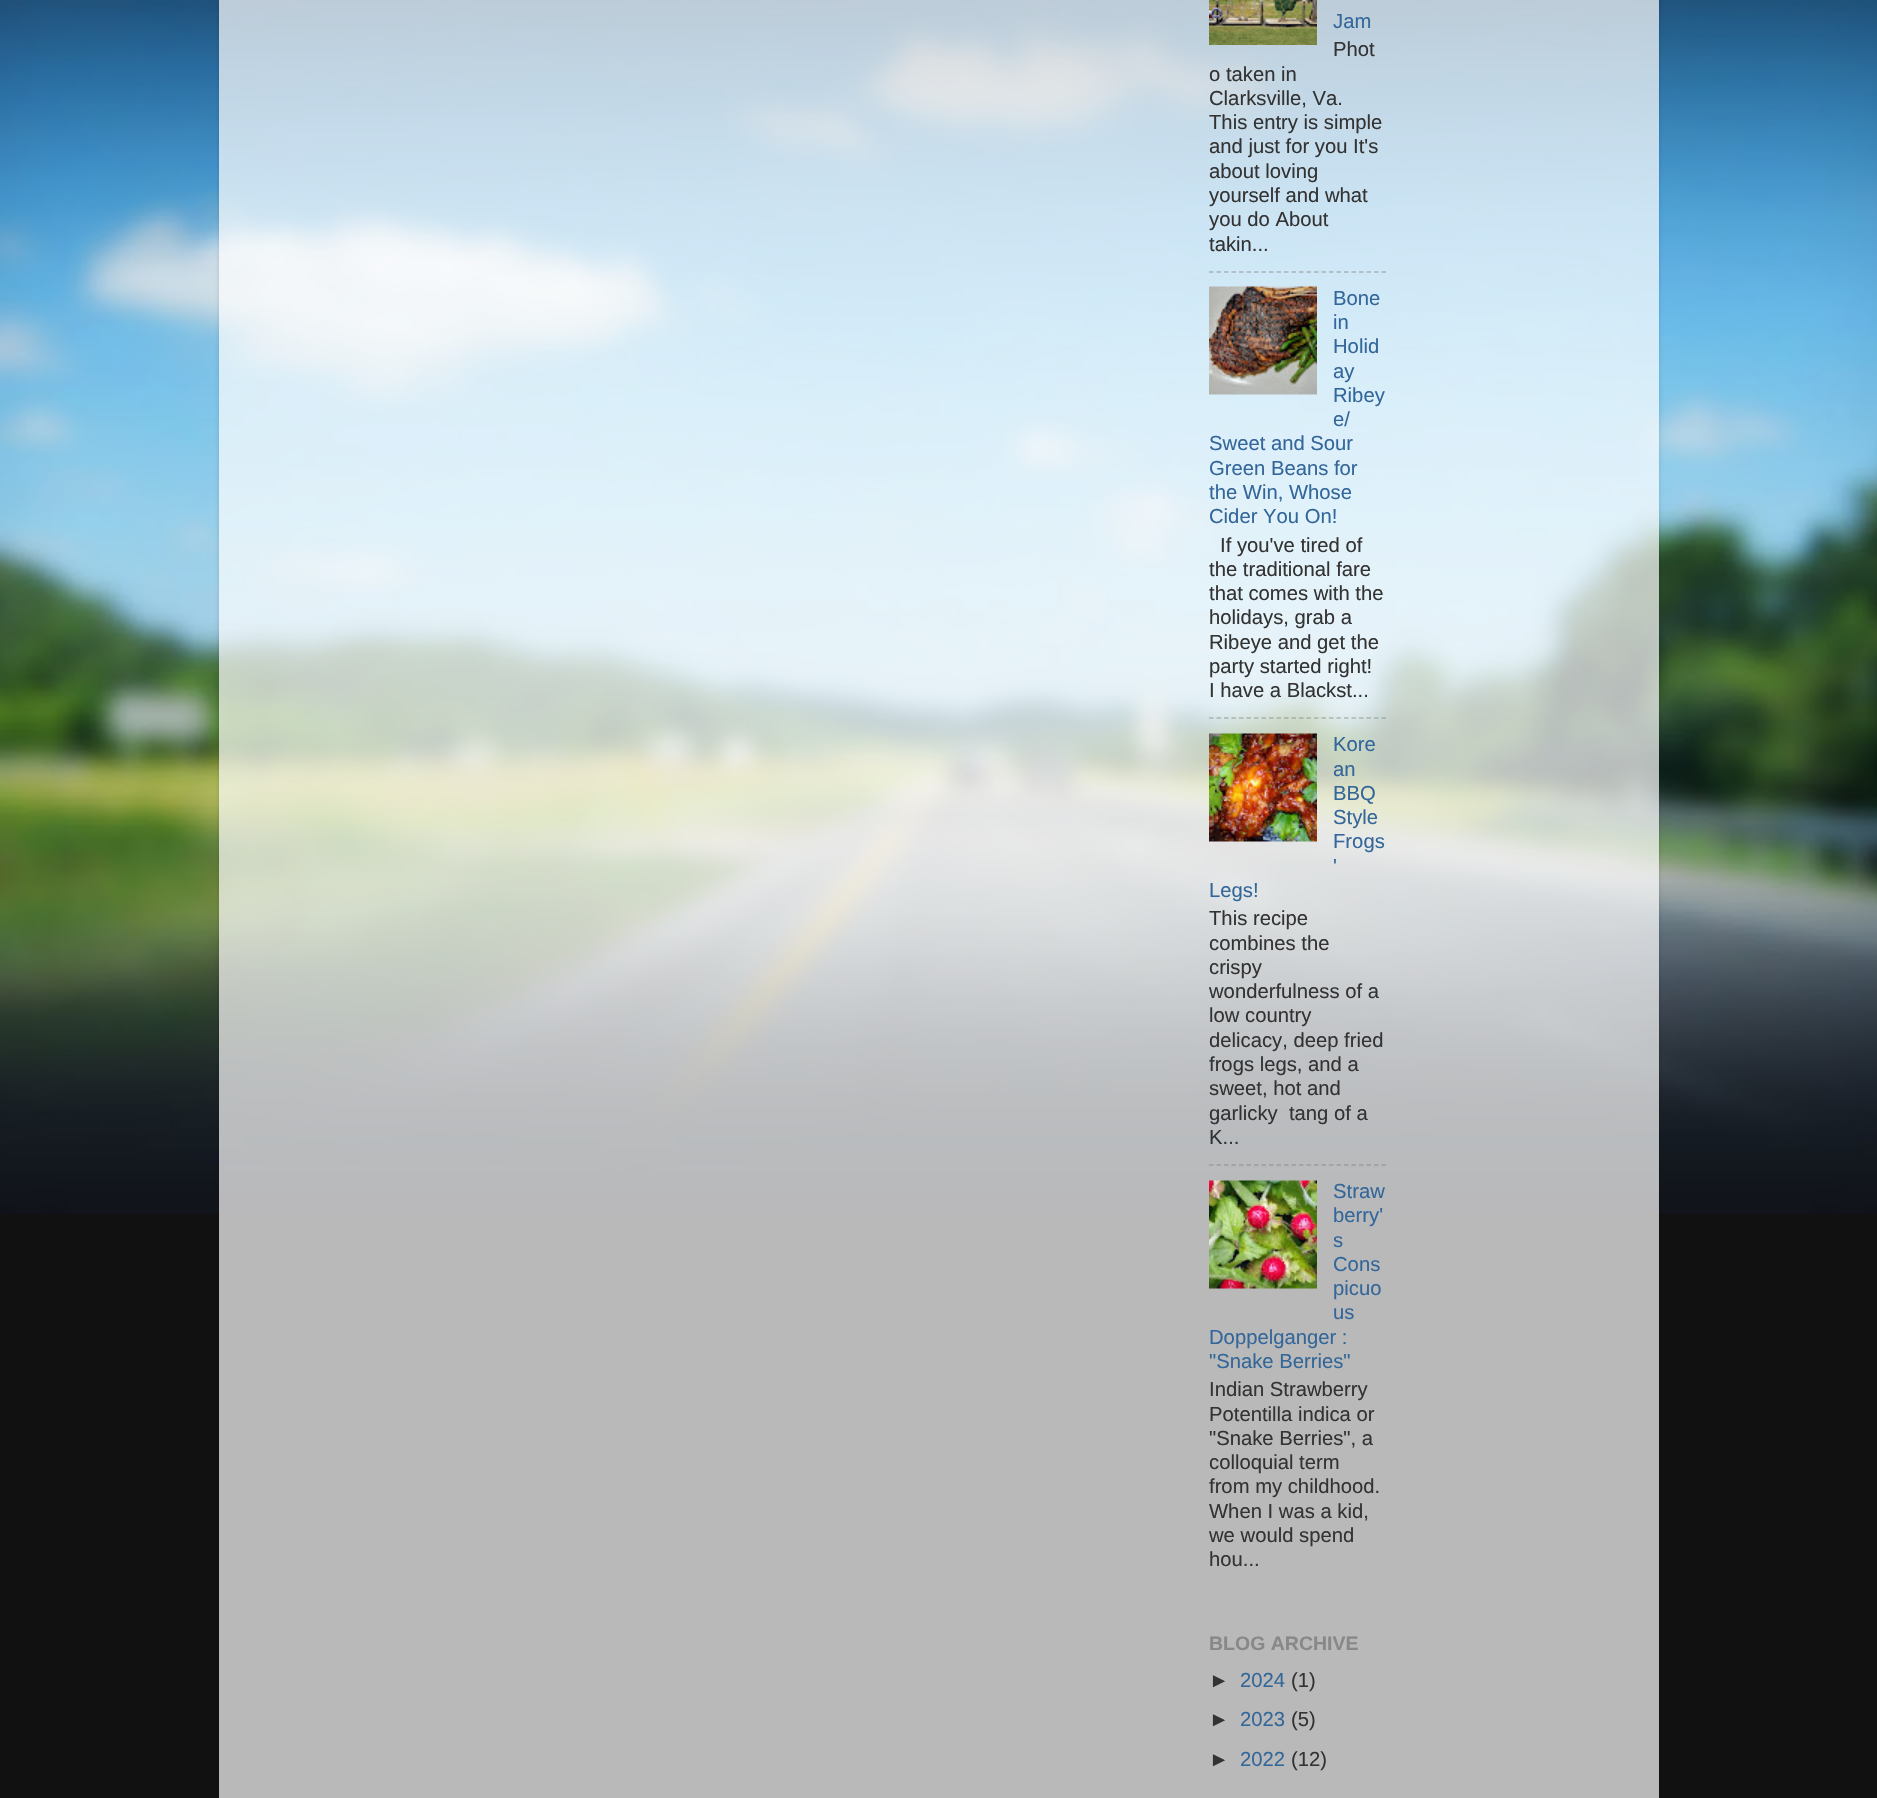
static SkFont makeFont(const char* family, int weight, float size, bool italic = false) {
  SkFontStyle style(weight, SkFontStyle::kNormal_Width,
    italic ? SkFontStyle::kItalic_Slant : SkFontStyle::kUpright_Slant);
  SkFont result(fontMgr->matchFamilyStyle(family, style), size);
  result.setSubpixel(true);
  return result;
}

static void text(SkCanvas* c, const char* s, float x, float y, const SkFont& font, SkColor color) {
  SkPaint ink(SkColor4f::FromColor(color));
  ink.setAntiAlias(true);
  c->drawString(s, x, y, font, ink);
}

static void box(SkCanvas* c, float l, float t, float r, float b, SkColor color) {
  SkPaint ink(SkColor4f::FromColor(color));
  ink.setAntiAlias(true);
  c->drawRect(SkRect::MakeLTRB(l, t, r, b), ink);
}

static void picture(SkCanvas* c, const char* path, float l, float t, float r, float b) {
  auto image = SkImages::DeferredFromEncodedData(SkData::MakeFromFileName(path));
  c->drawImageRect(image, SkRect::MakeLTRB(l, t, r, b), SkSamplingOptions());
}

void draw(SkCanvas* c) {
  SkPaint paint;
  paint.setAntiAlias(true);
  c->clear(0xff111111);
  picture(c, "img_01.png", 0, 0, 1877, 1214);
  c->save();
  c->clipPath(SkPathBuilder(SkPathFillType::kEvenOdd).moveTo(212, 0).lineTo(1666, 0).lineTo(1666, 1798).lineTo(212, 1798).close().moveTo(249, -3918).lineTo(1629, -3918).cubicTo(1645.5f, -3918, 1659, -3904.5f, 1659, -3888).lineTo(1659, 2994).lineTo(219, 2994).lineTo(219, -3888).cubicTo(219, -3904.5f, 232.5f, -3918, 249, -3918).close().detach(), true);
  paint.setColor(0x26000000);
  paint.setMaskFilter(SkMaskFilter::MakeBlur(kNormal_SkBlurStyle, 2));
  c->drawRoundRect(SkRect::MakeLTRB(219, -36, 1659, 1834), 30, 30, paint);
  paint.setMaskFilter(nullptr);
  c->restore();
  box(c, 219, 0, 1659, 1798, 0xb3ffffff);
  picture(c, "img_02.png", 1209, 0, 1317, 45);
  SkFont face1 = makeFont("Liberation Sans", 400, 20.25f);
  text(c, "Jam", 1333, 28, face1, 0xff336699);
  text(c, "Phot", 1333, 56, face1, 0xff333333);
  text(c, "o taken in", 1209, 81, face1, 0xff333333);
  text(c, "Clarksville, Va.", 1209, 105, face1, 0xff333333);
  text(c, "This entry is simple", 1209, 129, face1, 0xff333333);
  text(c, "and just for you It's", 1209, 153, face1, 0xff333333);
  text(c, "about loving", 1209, 178, face1, 0xff333333);
  text(c, "yourself and what", 1209, 202, face1, 0xff333333);
  text(c, "you do About", 1209, 226, face1, 0xff333333);
  text(c, "takin...", 1209, 251, face1, 0xff333333);
  paint.setStyle(SkPaint::kStroke_Style);
  paint.setStrokeWidth(1.5f);
  paint.setColor(0xffa8b4bb);
  paint.setPathEffect(SkDashPathEffect::Make({{4.5f, 3}}, 0));
  c->drawPath(SkPathBuilder().moveTo(1209, 272).lineTo(1386, 272).detach(), paint);
  paint.setPathEffect(nullptr);
  picture(c, "img_03.png", 1209, 286, 1317, 395);
  text(c, "Bone", 1333, 305, face1, 0xff336699);
  text(c, "in", 1333, 329, face1, 0xff336699);
  text(c, "Holid", 1333, 353, face1, 0xff336699);
  text(c, "ay", 1333, 378, face1, 0xff336699);
  text(c, "Ribey", 1333, 402, face1, 0xff336699);
  text(c, "e/", 1333, 426, face1, 0xff336699);
  text(c, "Sweet and Sour", 1209, 450, face1, 0xff336699);
  text(c, "Green Beans for", 1209, 475, face1, 0xff336699);
  text(c, "the Win, Whose", 1209, 499, face1, 0xff336699);
  text(c, "Cider You On!", 1209, 523, face1, 0xff336699);
  text(c, "If you've tired of", 1220, 552, face1, 0xff333333);
  text(c, "the traditional fare", 1209, 576, face1, 0xff333333);
  text(c, "that comes with the", 1209, 600, face1, 0xff333333);
  text(c, "holidays, grab a", 1209, 624, face1, 0xff333333);
  text(c, "Ribeye and get the", 1209, 649, face1, 0xff333333);
  text(c, "party started right!", 1209, 673, face1, 0xff333333);
  text(c, "I have a Blackst...", 1209, 697, face1, 0xff333333);
  paint.setColor(0x80808080);
  paint.setPathEffect(SkDashPathEffect::Make({{4.5f, 3}}, 0));
  c->drawPath(SkPathBuilder().moveTo(1209, 718).lineTo(1386, 718).detach(), paint);
  paint.setPathEffect(nullptr);
  picture(c, "img_04.png", 1209, 733, 1317, 842);
  text(c, "Kore", 1333, 751, face1, 0xff336699);
  text(c, "an", 1333, 776, face1, 0xff336699);
  text(c, "BBQ", 1333, 800, face1, 0xff336699);
  text(c, "Style", 1333, 824, face1, 0xff336699);
  text(c, "Frogs", 1333, 848, face1, 0xff336699);
  text(c, "'", 1333, 873, face1, 0xff336699);
  text(c, "Legs!", 1209, 897, face1, 0xff336699);
  text(c, "This recipe", 1209, 925, face1, 0xff333333);
  text(c, "combines the", 1209, 950, face1, 0xff333333);
  text(c, "crispy", 1209, 974, face1, 0xff333333);
  text(c, "wonderfulness of a", 1209, 998, face1, 0xff333333);
  text(c, "low country", 1209, 1022, face1, 0xff333333);
  text(c, "delicacy, deep fried", 1209, 1047, face1, 0xff333333);
  text(c, "frogs legs, and a", 1209, 1071, face1, 0xff333333);
  text(c, "sweet, hot and", 1209, 1095, face1, 0xff333333);
  text(c, "garlicky  tang of a", 1209, 1120, face1, 0xff333333);
  text(c, "K...", 1209, 1144, face1, 0xff333333);
  paint.setColor(0xff9c9d9e);
  paint.setPathEffect(SkDashPathEffect::Make({{4.5f, 3}}, 0));
  c->drawPath(SkPathBuilder().moveTo(1209, 1165).lineTo(1386, 1165).detach(), paint);
  paint.setPathEffect(nullptr);
  picture(c, "img_05.png", 1209, 1180, 1317, 1289);
  text(c, "Straw", 1333, 1198, face1, 0xff336699);
  text(c, "berry'", 1333, 1222, face1, 0xff336699);
  text(c, "s", 1333, 1247, face1, 0xff336699);
  text(c, "Cons", 1333, 1271, face1, 0xff336699);
  text(c, "picuo", 1333, 1295, face1, 0xff336699);
  text(c, "us", 1333, 1319, face1, 0xff336699);
  text(c, "Doppelganger :", 1209, 1344, face1, 0xff336699);
  text(c, "\"Snake Berries\"", 1209, 1368, face1, 0xff336699);
  text(c, "Indian Strawberry", 1209, 1396, face1, 0xff333333);
  text(c, "Potentilla indica or", 1209, 1421, face1, 0xff333333);
  text(c, "\"Snake Berries\", a", 1209, 1445, face1, 0xff333333);
  text(c, "colloquial term", 1209, 1469, face1, 0xff333333);
  text(c, "from my childhood.", 1209, 1493, face1, 0xff333333);
  text(c, "When I was a kid,", 1209, 1518, face1, 0xff333333);
  text(c, "we would spend", 1209, 1542, face1, 0xff333333);
  text(c, "hou...", 1209, 1566, face1, 0xff333333);
  SkFont face2 = makeFont("Liberation Sans", 700, 19.5f);
  text(c, "BLOG ARCHIVE", 1209, 1650, face2, 0xff888888);
  text(c, "►", 1209, 1687, face1, 0xff333333);
  text(c, "2024", 1240, 1687, face1, 0xff336699);
  text(c, "(1)", 1291, 1687, face1, 0xff333333);
  text(c, "►", 1209, 1726, face1, 0xff333333);
  text(c, "2023", 1240, 1726, face1, 0xff336699);
  text(c, "(5)", 1291, 1726, face1, 0xff333333);
  text(c, "►", 1209, 1766, face1, 0xff333333);
  text(c, "2022", 1240, 1766, face1, 0xff336699);
  text(c, "(12)", 1291, 1766, face1, 0xff333333);
}
